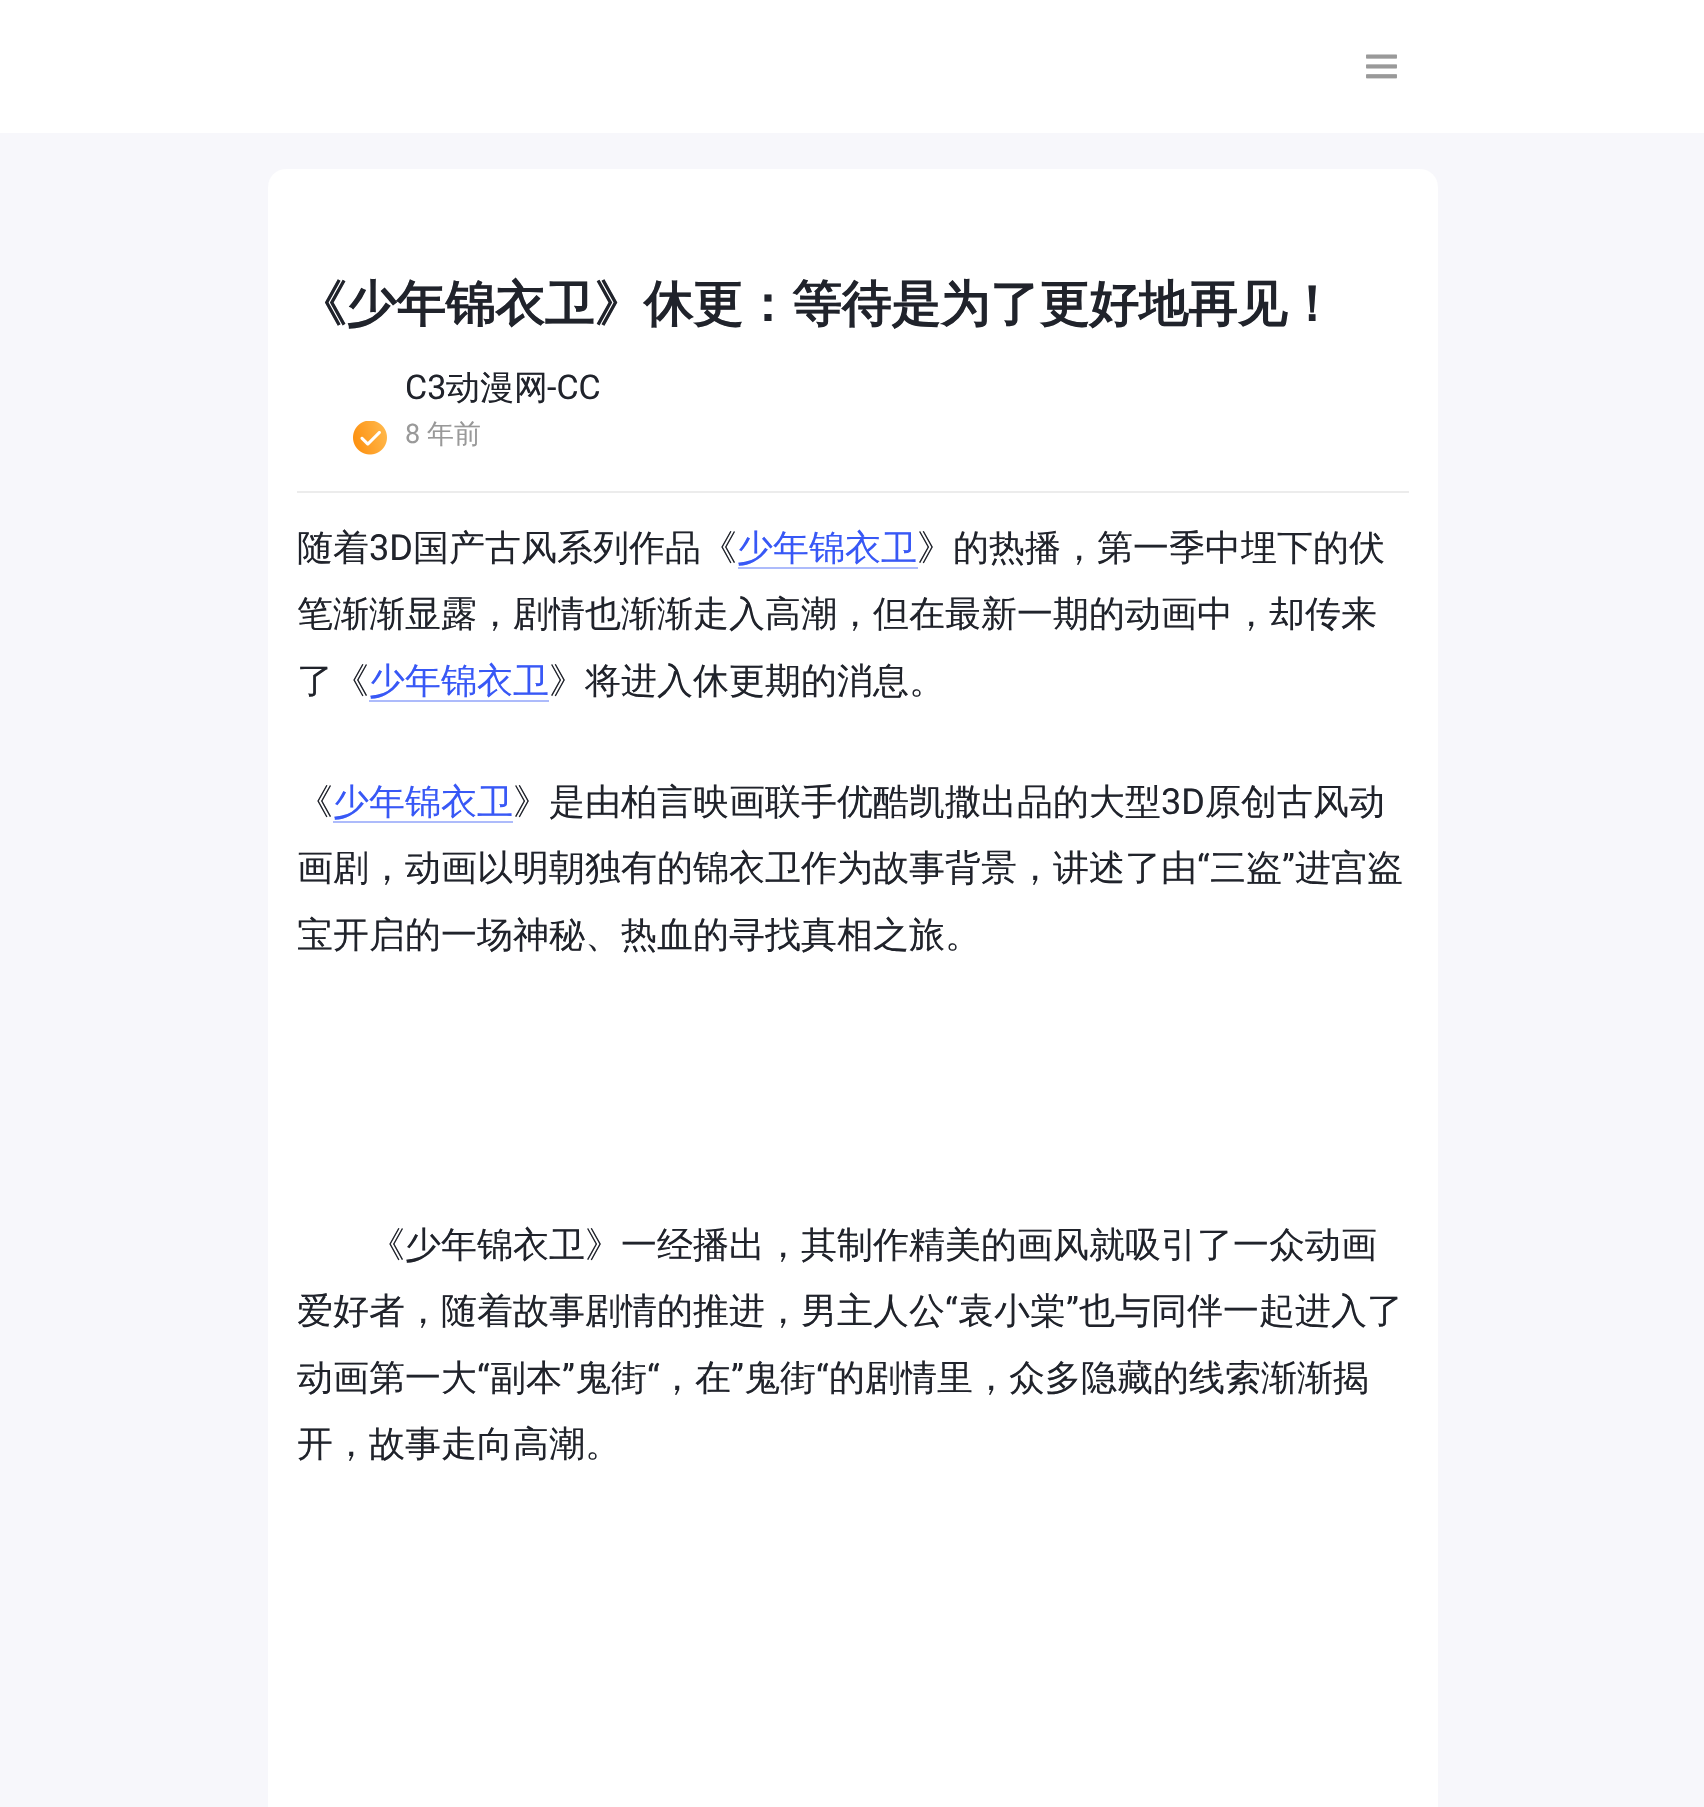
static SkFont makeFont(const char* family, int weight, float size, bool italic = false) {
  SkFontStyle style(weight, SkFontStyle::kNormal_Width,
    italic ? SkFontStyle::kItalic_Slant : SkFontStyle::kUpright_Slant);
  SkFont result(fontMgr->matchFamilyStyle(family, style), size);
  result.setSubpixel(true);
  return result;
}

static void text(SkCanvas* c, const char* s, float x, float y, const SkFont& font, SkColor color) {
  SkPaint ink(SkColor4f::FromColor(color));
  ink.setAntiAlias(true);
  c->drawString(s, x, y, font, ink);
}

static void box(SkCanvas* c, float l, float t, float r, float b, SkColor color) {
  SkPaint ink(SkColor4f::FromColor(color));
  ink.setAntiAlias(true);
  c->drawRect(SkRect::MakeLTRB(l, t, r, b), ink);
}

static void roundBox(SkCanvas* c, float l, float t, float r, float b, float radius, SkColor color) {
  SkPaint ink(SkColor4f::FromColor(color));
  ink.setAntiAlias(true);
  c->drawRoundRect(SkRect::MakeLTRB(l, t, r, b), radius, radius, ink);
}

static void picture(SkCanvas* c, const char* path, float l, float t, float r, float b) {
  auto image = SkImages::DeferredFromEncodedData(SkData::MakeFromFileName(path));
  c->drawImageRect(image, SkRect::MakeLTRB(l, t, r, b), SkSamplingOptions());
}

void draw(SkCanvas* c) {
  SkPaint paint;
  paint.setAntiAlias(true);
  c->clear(0xfff7f7fb);
  box(c, 0, 0, 1704, 133, 0xffffffff);
  picture(c, "img_01.png", 1366, 54, 1397, 79);
  roundBox(c, 268, 169, 1438, 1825, 18, 0xffffffff);
  box(c, 297, 491, 1409, 493, 0xffececec);
  SkFont face1 = makeFont("WenQuanYi Zen Hei", 700, 49.5f);
  text(c, "《少年锦衣卫》休更：等待是为了更好地再见！", 297, 321, face1, 0xff20232b);
  picture(c, "img_02.png", 353, 421, 387, 455);
  SkFont face2 = makeFont("Roboto", 400, 34);
  text(c, "C3", 405, 399, face2, 0xff20232b);
  SkFont face3 = makeFont("WenQuanYi Zen Hei", 500, 34);
  text(c, "动漫网", 446, 399, face3, 0xff20232b);
  text(c, "-CC", 547, 399, face2, 0xff20232b);
  SkFont face4 = makeFont("Roboto", 400, 27);
  text(c, "8", 405, 443, face4, 0xff999999);
  SkFont face5 = makeFont("WenQuanYi Zen Hei", 500, 27);
  text(c, "年前", 427, 443, face5, 0xff999999);
  SkFont face6 = makeFont("WenQuanYi Zen Hei", 500, 36);
  text(c, "随着", 297, 560, face6, 0xff20232b);
  SkFont face7 = makeFont("Roboto", 400, 36);
  text(c, "3D", 369, 560, face7, 0xff20232b);
  text(c, "国产古风系列作品《", 413, 560, face6, 0xff20232b);
  text(c, "少年锦衣卫", 737, 560, face6, 0xff3858f6);
  box(c, 738, 567, 918, 569, 0xffadbbfb);
  text(c, "》的热播，第一季中埋下的伏", 917, 560, face6, 0xff20232b);
  text(c, "笔渐渐显露，剧情也渐渐走入高潮，但在最新一期的动画中，却传来", 297, 626, face6, 0xff20232b);
  text(c, "了《", 297, 693, face6, 0xff20232b);
  text(c, "少年锦衣卫", 369, 693, face6, 0xff3858f6);
  box(c, 369, 700, 549, 702, 0xffadbbfb);
  text(c, "》将进入休更期的消息。", 549, 693, face6, 0xff20232b);
  text(c, "《", 297, 814, face6, 0xff20232b);
  text(c, "少年锦衣卫", 333, 814, face6, 0xff3858f6);
  box(c, 333, 821, 513, 823, 0xffadbbfb);
  text(c, "》是由柏言映画联手优酷凯撒出品的大型", 513, 814, face6, 0xff20232b);
  text(c, "3D", 1161, 814, face7, 0xff20232b);
  text(c, "原创古风动", 1205, 814, face6, 0xff20232b);
  text(c, "画剧，动画以明朝独有的锦衣卫作为故事背景，讲述了由", 297, 880, face6, 0xff20232b);
  text(c, "“", 1197, 880, face7, 0xff20232b);
  text(c, "三盗", 1210, 880, face6, 0xff20232b);
  text(c, "”", 1282, 880, face7, 0xff20232b);
  text(c, "进宫盗", 1295, 880, face6, 0xff20232b);
  text(c, "宝开启的一场神秘、热血的寻找真相之旅。", 297, 947, face6, 0xff20232b);
  text(c, "《少年锦衣卫》一经播出，其制作精美的画风就吸引了一众动画", 369, 1257, face6, 0xff20232b);
  text(c, "爱好者，随着故事剧情的推进，男主人公", 297, 1323, face6, 0xff20232b);
  text(c, "“", 945, 1323, face7, 0xff20232b);
  text(c, "袁小棠", 958, 1323, face6, 0xff20232b);
  text(c, "”", 1066, 1323, face7, 0xff20232b);
  text(c, "也与同伴一起进入了", 1079, 1323, face6, 0xff20232b);
  text(c, "动画第一大", 297, 1390, face6, 0xff20232b);
  text(c, "“", 477, 1390, face7, 0xff20232b);
  text(c, "副本", 490, 1390, face6, 0xff20232b);
  text(c, "”", 562, 1390, face7, 0xff20232b);
  text(c, "鬼街", 575, 1390, face6, 0xff20232b);
  text(c, "“", 647, 1390, face7, 0xff20232b);
  text(c, "，在", 659, 1390, face6, 0xff20232b);
  text(c, "”", 731, 1390, face7, 0xff20232b);
  text(c, "鬼街", 744, 1390, face6, 0xff20232b);
  text(c, "“", 816, 1390, face7, 0xff20232b);
  text(c, "的剧情里，众多隐藏的线索渐渐揭", 829, 1390, face6, 0xff20232b);
  text(c, "开，故事走向高潮。", 297, 1456, face6, 0xff20232b);
}
